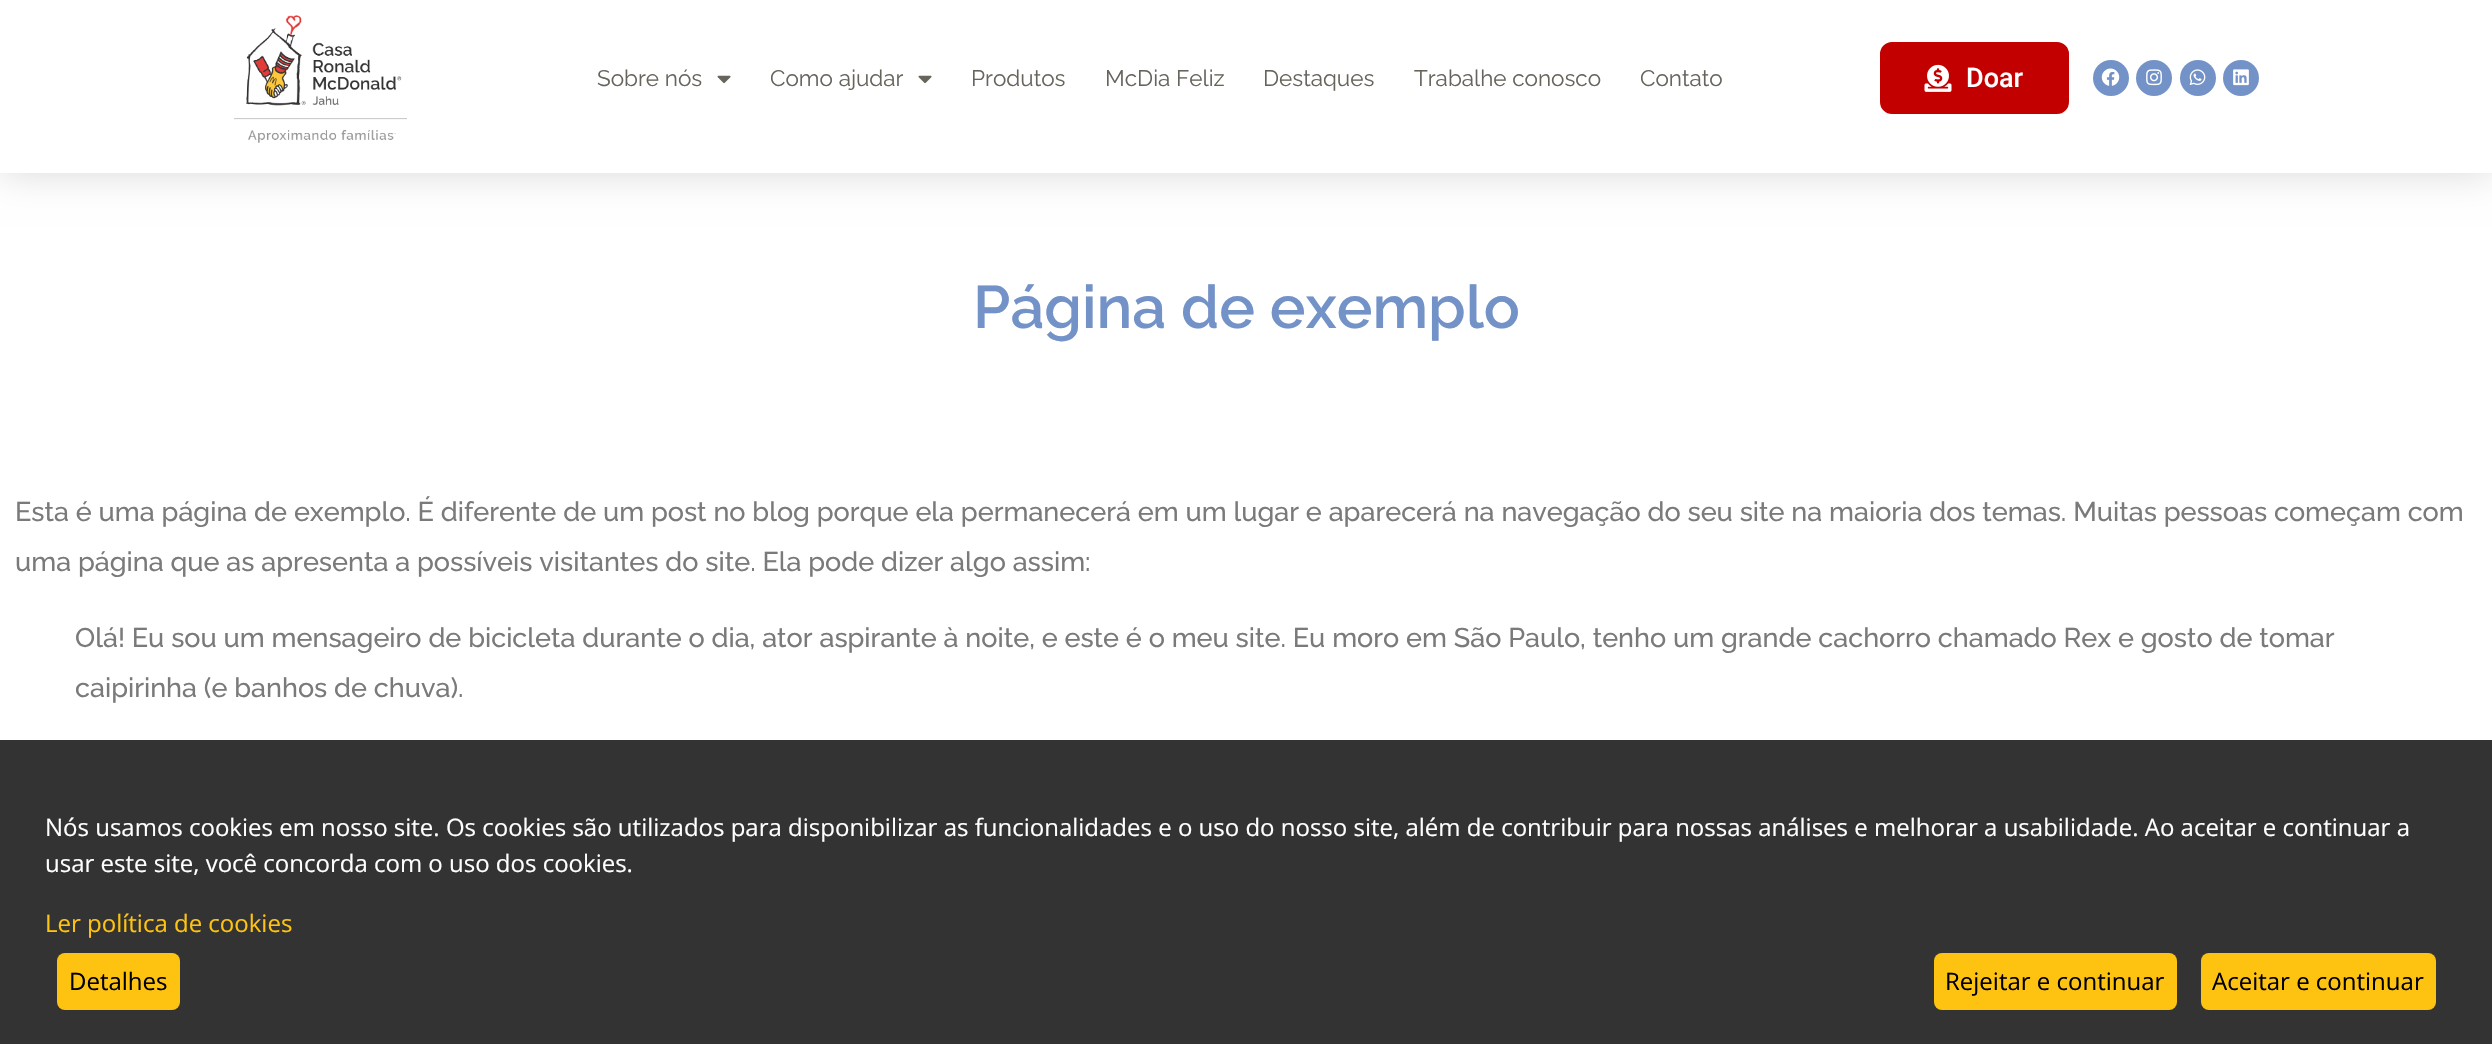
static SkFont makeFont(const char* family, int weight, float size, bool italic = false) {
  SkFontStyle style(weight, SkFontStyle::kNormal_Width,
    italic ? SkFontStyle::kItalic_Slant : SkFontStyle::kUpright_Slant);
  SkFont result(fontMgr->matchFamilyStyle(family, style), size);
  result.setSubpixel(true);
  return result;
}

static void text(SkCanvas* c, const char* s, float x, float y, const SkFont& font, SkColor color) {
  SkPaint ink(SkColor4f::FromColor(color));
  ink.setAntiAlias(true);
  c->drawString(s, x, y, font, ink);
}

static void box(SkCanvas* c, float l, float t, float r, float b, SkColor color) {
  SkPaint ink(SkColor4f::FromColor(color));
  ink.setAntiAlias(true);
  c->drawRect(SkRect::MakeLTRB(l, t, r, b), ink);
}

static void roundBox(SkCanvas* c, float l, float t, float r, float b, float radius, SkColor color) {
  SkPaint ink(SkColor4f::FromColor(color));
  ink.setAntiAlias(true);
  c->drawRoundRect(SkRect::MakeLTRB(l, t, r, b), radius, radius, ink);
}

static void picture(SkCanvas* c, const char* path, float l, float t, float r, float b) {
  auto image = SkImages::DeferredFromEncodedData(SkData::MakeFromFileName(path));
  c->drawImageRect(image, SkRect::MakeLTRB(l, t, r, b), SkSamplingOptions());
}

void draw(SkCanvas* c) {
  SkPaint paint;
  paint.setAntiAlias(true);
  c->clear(0xffffffff);
  paint.setColor(0x26000000);
  paint.setMaskFilter(SkMaskFilter::MakeBlur(kNormal_SkBlurStyle, 18));
  c->drawRect(SkRect::MakeLTRB(0, 0, 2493, 173), paint);
  paint.setMaskFilter(nullptr);
  box(c, 0, 0, 2492, 173, 0xffffffff);
  picture(c, "img_01.png", 234, 15, 407, 143);
  SkFont face1 = makeFont("Raleway", 400, 22.5f);
  text(c, "Sobre nós", 597, 86, face1, 0xff67645c);
  picture(c, "img_02.png", 717, 75, 731, 84);
  text(c, "Como ajudar", 770, 86, face1, 0xff67645c);
  picture(c, "img_02.png", 918, 75, 932, 84);
  text(c, "Produtos", 971, 86, face1, 0xff67645c);
  text(c, "McDia Feliz", 1105, 86, face1, 0xff67645c);
  text(c, "Destaques", 1263, 86, face1, 0xff67645c);
  text(c, "Trabalhe conosco", 1414, 86, face1, 0xff67645c);
  text(c, "Contato", 1640, 86, face1, 0xff67645c);
  paint.setColor(0xffc20000);
  c->drawRoundRect(SkRect::MakeLTRB(1878.5f, 40.5f, 2070.5f, 115.5f), 13.5f, 13.5f, paint);
  paint.setStyle(SkPaint::kStroke_Style);
  paint.setStrokeWidth(3);
  paint.setColor(0xffffffff);
  c->drawRoundRect(SkRect::MakeLTRB(1878.5f, 40.5f, 2070.5f, 115.5f), 13.5f, 13.5f, paint);
  picture(c, "img_03.png", 1924, 64, 1952, 92);
  SkFont face2 = makeFont("Roboto", 500, 27);
  text(c, "Doar", 1966, 87, face2, 0xffffffff);
  paint.setStyle(SkPaint::kFill_Style);
  paint.setColor(0xff7392c7);
  c->drawCircle(2111, 78, 18, paint);
  picture(c, "img_04.png", 2101, 68, 2120, 86);
  c->drawCircle(2154, 78, 18, paint);
  picture(c, "img_05.png", 2146, 69, 2162, 86);
  c->drawCircle(2198, 78, 18, paint);
  picture(c, "img_06.png", 2189, 69, 2206, 85);
  c->drawCircle(2241, 78, 18, paint);
  picture(c, "img_07.png", 2233, 69, 2249, 86);
  SkFont face3 = makeFont("Raleway", 600, 60);
  text(c, "Página de exemplo", 973, 328, face3, 0xff7392c7);
  SkFont face4 = makeFont("Raleway", 500, 27);
  text(c, "Esta é uma página de exemplo. É diferente de um post no blog porque ela permanecerá em um lugar e aparecerá na navegação do seu site na maioria dos temas. Muitas pessoas começam com", 15, 521, face4, 0xff7a7a7a);
  text(c, "uma página que as apresenta a possíveis visitantes do site. Ela pode dizer algo assim:", 15, 571, face4, 0xff7a7a7a);
  text(c, "Olá! Eu sou um mensageiro de bicicleta durante o dia, ator aspirante à noite, e este é o meu site. Eu moro em São Paulo, tenho um grande cachorro chamado Rex e gosto de tomar", 75, 647, face4, 0xff7a7a7a);
  text(c, "caipirinha (e banhos de chuva).", 75, 697, face4, 0xff7a7a7a);
  box(c, 0, 740, 2492, 1044, 0xff333333);
  SkFont face5 = makeFont("Open Sans", 400, 24);
  text(c, "Nós usamos cookies em nosso site. Os cookies são utilizados para disponibilizar as funcionalidades e o uso do nosso site, além de contribuir para nossas análises e melhorar a usabilidade. Ao aceitar e continuar a", 45, 836, face5, 0xffffffff);
  text(c, "usar este site, você concorda com o uso dos cookies.", 45, 872, face5, 0xffffffff);
  text(c, "Ler política de cookies", 45, 932, face5, 0xfffec311);
  roundBox(c, 57, 953, 180, 1010, 8, 0xfffec311);
  text(c, "Detalhes", 69, 990, face5, 0xff000000);
  roundBox(c, 1934, 953, 2177, 1010, 8, 0xfffec311);
  text(c, "Rejeitar e continuar", 1945, 990, face5, 0xff000000);
  roundBox(c, 2201, 953, 2436, 1010, 8, 0xfffec311);
  text(c, "Aceitar e continuar", 2212, 990, face5, 0xff000000);
}
